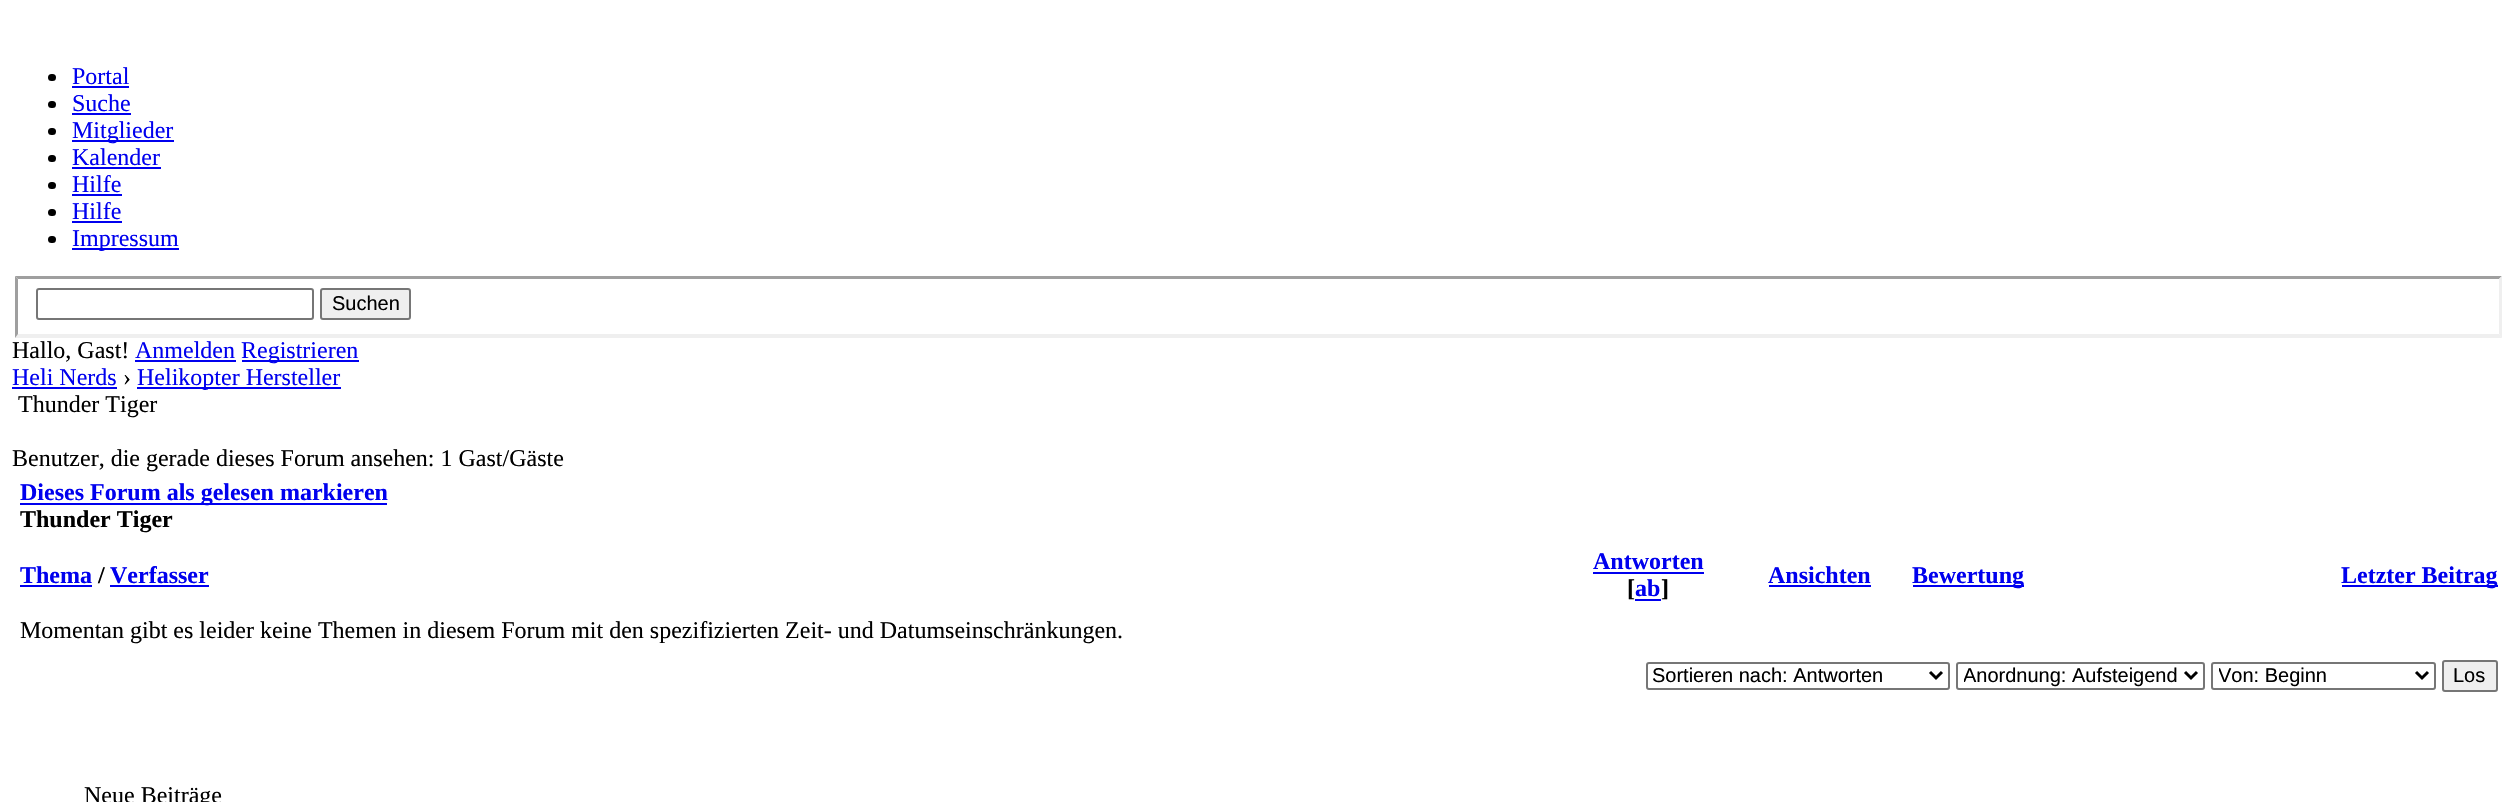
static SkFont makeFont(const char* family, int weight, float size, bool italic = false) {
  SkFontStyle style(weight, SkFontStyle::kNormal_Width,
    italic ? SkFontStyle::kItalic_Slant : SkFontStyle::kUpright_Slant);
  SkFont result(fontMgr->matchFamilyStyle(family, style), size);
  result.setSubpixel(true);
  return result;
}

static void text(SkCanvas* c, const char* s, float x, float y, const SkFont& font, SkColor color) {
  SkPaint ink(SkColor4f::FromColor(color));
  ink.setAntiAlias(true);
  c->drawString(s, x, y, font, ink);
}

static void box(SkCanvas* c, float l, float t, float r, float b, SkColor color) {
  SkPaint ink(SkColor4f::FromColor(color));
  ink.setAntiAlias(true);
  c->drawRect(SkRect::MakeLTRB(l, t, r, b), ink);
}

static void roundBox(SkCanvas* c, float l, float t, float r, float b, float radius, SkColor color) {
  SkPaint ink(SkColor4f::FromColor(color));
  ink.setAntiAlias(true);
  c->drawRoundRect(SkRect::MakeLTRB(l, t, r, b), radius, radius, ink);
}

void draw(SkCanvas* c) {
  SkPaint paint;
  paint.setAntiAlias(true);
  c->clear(0xffffffff);
  roundBox(c, 48, 74, 56, 81, 3.5f, 0xff000000);
  SkFont face1 = makeFont("Liberation Serif", 400, 24);
  text(c, "Portal", 72, 84, face1, 0xff0000ee);
  box(c, 72, 86, 129, 88, 0xff0000ee);
  roundBox(c, 48, 101, 56, 108, 3.5f, 0xff000000);
  text(c, "Suche", 72, 111, face1, 0xff0000ee);
  box(c, 72, 113, 131, 115, 0xff0000ee);
  roundBox(c, 48, 128, 56, 135, 3.5f, 0xff000000);
  box(c, 72, 140, 174, 142, 0xff0000ee);
  text(c, "Mitglieder", 72, 138, face1, 0xff0000ee);
  roundBox(c, 48, 155, 56, 162, 3.5f, 0xff000000);
  text(c, "Kalender", 72, 165, face1, 0xff0000ee);
  box(c, 72, 167, 161, 169, 0xff0000ee);
  roundBox(c, 48, 182, 56, 189, 3.5f, 0xff000000);
  text(c, "Hilfe", 72, 192, face1, 0xff0000ee);
  box(c, 72, 194, 122, 196, 0xff0000ee);
  roundBox(c, 48, 209, 56, 216, 3.5f, 0xff000000);
  text(c, "Hilfe", 72, 219, face1, 0xff0000ee);
  box(c, 72, 221, 122, 223, 0xff0000ee);
  roundBox(c, 48, 236, 56, 243, 3.5f, 0xff000000);
  box(c, 72, 248, 179, 250, 0xff0000ee);
  text(c, "Impressum", 72, 246, face1, 0xff0000ee);
  paint.setColor(0xff9f9f9f);
  c->drawPath(SkPathBuilder().moveTo(15, 276).lineTo(2502, 276).lineTo(2499, 279).lineTo(18, 279).close().detach(), paint);
  paint.setColor(0xffefefef);
  c->drawPath(SkPathBuilder().moveTo(2502, 276).lineTo(2502, 338).lineTo(2499, 334).lineTo(2499, 279).close().detach(), paint);
  c->drawPath(SkPathBuilder().moveTo(2502, 338).lineTo(15, 338).lineTo(18, 334).lineTo(2499, 334).close().detach(), paint);
  paint.setColor(0xff9f9f9f);
  c->drawPath(SkPathBuilder().moveTo(15, 338).lineTo(15, 276).lineTo(18, 279).lineTo(18, 334).close().detach(), paint);
  paint.setStyle(SkPaint::kStroke_Style);
  paint.setStrokeWidth(2);
  paint.setColor(0xff767676);
  c->drawRoundRect(SkRect::MakeLTRB(37, 289, 313, 319), 2, 2, paint);
  paint.setStyle(SkPaint::kFill_Style);
  paint.setColor(0xffefefef);
  c->drawRoundRect(SkRect::MakeLTRB(321, 289, 410, 319), 2, 2, paint);
  paint.setStyle(SkPaint::kStroke_Style);
  paint.setColor(0xff767676);
  c->drawRoundRect(SkRect::MakeLTRB(321, 289, 410, 319), 2, 2, paint);
  SkFont face2 = makeFont("Liberation Sans", 400, 20);
  text(c, "Suchen", 332, 310, face2, 0xff000000);
  text(c, "Hallo, Gast!", 12, 358, face1, 0xff000000);
  text(c, "Anmelden", 135, 358, face1, 0xff0000ee);
  box(c, 242, 360, 359, 362, 0xff0000ee);
  text(c, "Registrieren", 241, 358, face1, 0xff0000ee);
  box(c, 135, 360, 236, 362, 0xff0000ee);
  text(c, "Heli Nerds", 12, 385, face1, 0xff0000ee);
  box(c, 12, 387, 117, 389, 0xff0000ee);
  text(c, "›", 123, 385, face1, 0xff000000);
  box(c, 137, 387, 341, 389, 0xff0000ee);
  text(c, "Helikopter Hersteller", 137, 385, face1, 0xff0000ee);
  text(c, "Thunder Tiger", 18, 412, face1, 0xff000000);
  text(c, "Benutzer, die gerade dieses Forum ansehen: 1 Gast/Gäste", 12, 466, face1, 0xff000000);
  box(c, 20, 503, 387, 505, 0xff0000ee);
  SkFont face3 = makeFont("Liberation Serif", 700, 24);
  text(c, "Dieses Forum als gelesen markieren", 20, 500, face3, 0xff0000ee);
  text(c, "Thunder Tiger", 20, 527, face3, 0xff000000);
  text(c, "Thema", 20, 583, face3, 0xff0000ee);
  box(c, 20, 585, 92, 587, 0xff0000ee);
  text(c, "/", 98, 583, face3, 0xff000000);
  text(c, "Verfasser", 110, 583, face3, 0xff0000ee);
  box(c, 110, 585, 209, 587, 0xff0000ee);
  text(c, "Antworten", 1593, 569, face3, 0xff0000ee);
  box(c, 1593, 572, 1704, 574, 0xff0000ee);
  text(c, "[", 1627, 596, face3, 0xff000000);
  box(c, 1635, 599, 1661, 601, 0xff0000ee);
  text(c, "ab", 1635, 596, face3, 0xff0000ee);
  text(c, "]", 1661, 596, face3, 0xff000000);
  text(c, "Ansichten", 1768, 583, face3, 0xff0000ee);
  box(c, 1769, 585, 1871, 587, 0xff0000ee);
  box(c, 1913, 585, 2024, 587, 0xff0000ee);
  text(c, "Bewertung", 1912, 583, face3, 0xff0000ee);
  box(c, 2342, 585, 2498, 587, 0xff0000ee);
  text(c, "Letzter Beitrag", 2341, 583, face3, 0xff0000ee);
  text(c, "Momentan gibt es leider keine Themen in diesem Forum mit den spezifizierten Zeit- und Datumseinschränkungen.", 20, 638, face1, 0xff000000);
  c->drawRoundRect(SkRect::MakeLTRB(1647, 663, 1949, 689), 2, 2, paint);
  paint.setStrokeWidth(3);
  paint.setColor(0xff000000);
  c->drawPath(SkPathBuilder().moveTo(1930, 672).lineTo(1936, 678).lineTo(1942, 672).detach(), paint);
  text(c, "Sortieren nach: Antworten", 1652, 682, face2, 0xff000000);
  paint.setStrokeWidth(2);
  paint.setColor(0xff767676);
  c->drawRoundRect(SkRect::MakeLTRB(1957, 663, 2204, 689), 2, 2, paint);
  paint.setStrokeWidth(3);
  paint.setColor(0xff000000);
  c->drawPath(SkPathBuilder().moveTo(2185, 672).lineTo(2191, 678).lineTo(2197, 672).detach(), paint);
  c->save();
  c->clipRect(SkRect::MakeLTRB(1964, 663, 2180, 689));
  text(c, "Anordnung: Aufsteigend", 1963, 682, face2, 0xff000000);
  c->restore();
  paint.setStrokeWidth(2);
  paint.setColor(0xff767676);
  c->drawRoundRect(SkRect::MakeLTRB(2212, 663, 2435, 689), 2, 2, paint);
  paint.setStrokeWidth(3);
  paint.setColor(0xff000000);
  c->drawPath(SkPathBuilder().moveTo(2416, 672).lineTo(2422, 678).lineTo(2428, 672).detach(), paint);
  c->save();
  c->clipRect(SkRect::MakeLTRB(2219, 663, 2411, 689));
  text(c, "Von: Beginn", 2218, 682, face2, 0xff000000);
  c->restore();
  paint.setStyle(SkPaint::kFill_Style);
  paint.setColor(0xffefefef);
  c->drawRoundRect(SkRect::MakeLTRB(2443, 661, 2497, 691), 2, 2, paint);
  paint.setStyle(SkPaint::kStroke_Style);
  paint.setStrokeWidth(2);
  paint.setColor(0xff767676);
  c->drawRoundRect(SkRect::MakeLTRB(2443, 661, 2497, 691), 2, 2, paint);
  text(c, "Los", 2453, 682, face2, 0xff000000);
  text(c, "Neue Beiträge", 84, 803, face1, 0xff000000);
}
